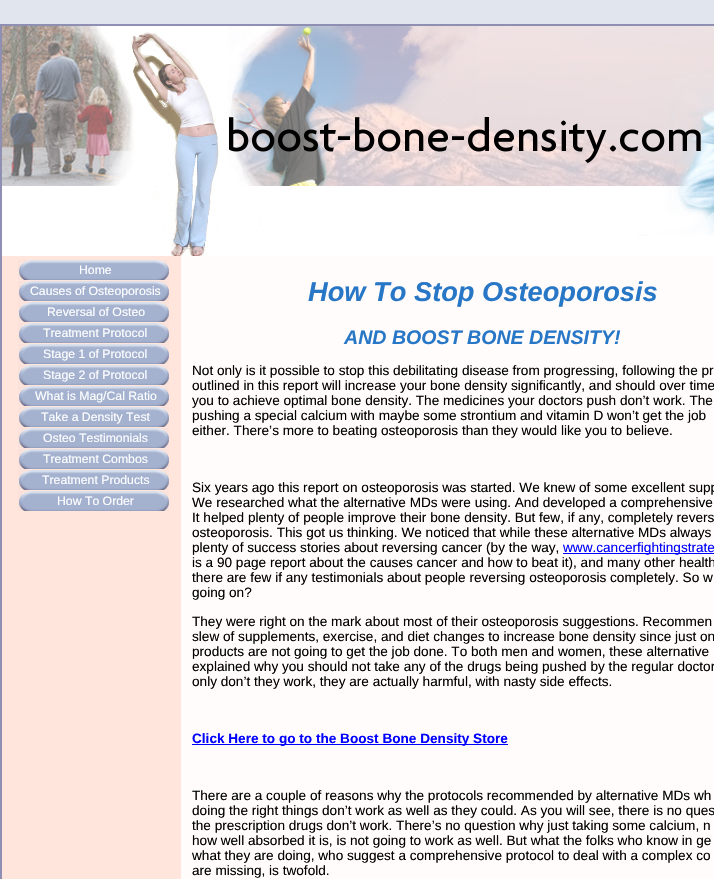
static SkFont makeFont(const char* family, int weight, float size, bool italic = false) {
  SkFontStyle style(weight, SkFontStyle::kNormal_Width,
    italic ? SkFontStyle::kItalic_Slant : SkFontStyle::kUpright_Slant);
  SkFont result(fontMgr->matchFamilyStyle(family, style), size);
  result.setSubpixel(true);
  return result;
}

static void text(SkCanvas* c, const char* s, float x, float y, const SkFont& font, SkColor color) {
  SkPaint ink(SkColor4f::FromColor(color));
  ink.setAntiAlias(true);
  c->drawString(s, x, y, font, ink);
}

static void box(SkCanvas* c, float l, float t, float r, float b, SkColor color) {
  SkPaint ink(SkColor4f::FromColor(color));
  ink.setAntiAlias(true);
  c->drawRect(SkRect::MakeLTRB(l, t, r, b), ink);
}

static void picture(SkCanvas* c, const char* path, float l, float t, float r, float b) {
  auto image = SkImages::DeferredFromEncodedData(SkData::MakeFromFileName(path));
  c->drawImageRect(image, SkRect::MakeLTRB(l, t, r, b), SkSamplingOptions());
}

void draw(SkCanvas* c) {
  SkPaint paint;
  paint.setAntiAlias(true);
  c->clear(0xffe1e5ee);
  picture(c, "img_01.png", 2, 256, 714, 879);
  paint.setStyle(SkPaint::kStroke_Style);
  paint.setStrokeWidth(2);
  paint.setColor(0xff8f8fb3);
  c->drawRect(SkRect::MakeLTRB(1, 25, 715, 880), paint);
  picture(c, "img_02.png", 2, 26, 714, 256);
  box(c, 18, 260, 19, 280, 0xfffae2da);
  picture(c, "img_03.png", 19, 260, 169, 280);
  SkFont face1 = makeFont("Liberation Sans", 400, 12.25f);
  text(c, "Home", 79, 274, face1, 0xffffffff);
  box(c, 18, 281, 19, 301, 0xfffae2da);
  picture(c, "img_03.png", 19, 281, 169, 301);
  text(c, "Causes of Osteoporosis", 30, 295, face1, 0xffffffff);
  box(c, 18, 302, 19, 322, 0xfffae2da);
  picture(c, "img_03.png", 19, 302, 169, 322);
  text(c, "Reversal of Osteo", 47, 316, face1, 0xffffffff);
  box(c, 18, 323, 19, 343, 0xfffae2da);
  picture(c, "img_03.png", 19, 323, 169, 343);
  text(c, "Treatment Protocol", 43, 337, face1, 0xffffffff);
  box(c, 18, 344, 19, 364, 0xfffae2da);
  picture(c, "img_03.png", 19, 344, 169, 364);
  text(c, "Stage 1 of Protocol", 43, 358, face1, 0xffffffff);
  box(c, 18, 365, 19, 385, 0xfffae2da);
  picture(c, "img_03.png", 19, 365, 169, 385);
  text(c, "Stage 2 of Protocol", 43, 379, face1, 0xffffffff);
  box(c, 18, 386, 19, 406, 0xfffae2da);
  picture(c, "img_03.png", 19, 386, 169, 406);
  text(c, "What is Mag/Cal Ratio", 35, 400, face1, 0xffffffff);
  box(c, 18, 407, 19, 427, 0xfffae2da);
  picture(c, "img_03.png", 19, 407, 169, 427);
  text(c, "Take a Density Test", 41, 421, face1, 0xffffffff);
  box(c, 18, 428, 19, 448, 0xfffae2da);
  picture(c, "img_03.png", 19, 428, 169, 448);
  text(c, "Osteo Testimonials", 43, 442, face1, 0xffffffff);
  box(c, 18, 449, 19, 469, 0xfffae2da);
  picture(c, "img_03.png", 19, 449, 169, 469);
  text(c, "Treatment Combos", 43, 463, face1, 0xffffffff);
  box(c, 18, 470, 19, 490, 0xfffae2da);
  picture(c, "img_03.png", 19, 470, 169, 490);
  text(c, "Treatment Products", 42, 484, face1, 0xffffffff);
  box(c, 18, 491, 19, 511, 0xfffae2da);
  picture(c, "img_03.png", 19, 491, 169, 511);
  text(c, "How To Order", 57, 505, face1, 0xffffffff);
  SkFont face2 = makeFont("Liberation Sans", 700, 27.25f, true);
  text(c, "How To Stop Osteoporosis", 308, 301, face2, 0xff2877c7);
  SkFont face3 = makeFont("Liberation Sans", 700, 19.6f, true);
  text(c, "AND BOOST BONE DENSITY!", 344, 344, face3, 0xff2877c7);
  SkFont face4 = makeFont("Liberation Sans", 400, 13.6f);
  text(c, "Not only is it possible to stop this debilitating disease from progressing, following the pr", 192, 375, face4, 0xff000000);
  text(c, "outlined in this report will increase your bone density significantly, and should over time", 192, 390, face4, 0xff000000);
  text(c, "you to achieve optimal bone density. The medicines your doctors push don’t work. The", 192, 405, face4, 0xff000000);
  text(c, "pushing a special calcium with maybe some strontium and vitamin D won’t get the job", 192, 420, face4, 0xff000000);
  text(c, "either. There’s more to beating osteoporosis than they would like you to believe.", 192, 435, face4, 0xff000000);
  text(c, "Six years ago this report on osteoporosis was started. We knew of some excellent supp", 192, 492, face4, 0xff000000);
  text(c, "We researched what the alternative MDs were using. And developed a comprehensive", 192, 507, face4, 0xff000000);
  text(c, "It helped plenty of people improve their bone density. But few, if any, completely revers", 192, 522, face4, 0xff000000);
  text(c, "osteoporosis. This got us thinking. We noticed that while these alternative MDs always", 192, 537, face4, 0xff000000);
  text(c, "plenty of success stories about reversing cancer (by the way,", 192, 552, face4, 0xff000000);
  box(c, 563, 553, 714, 554, 0xff0000ff);
  text(c, "www.cancerfightingstrate", 563, 552, face4, 0xff0000ff);
  text(c, "is a 90 page report about the causes cancer and how to beat it), and many other health", 192, 567, face4, 0xff000000);
  text(c, "there are few if any testimonials about people reversing osteoporosis completely. So w", 192, 582, face4, 0xff000000);
  text(c, "going on?", 192, 597, face4, 0xff000000);
  text(c, "They were right on the mark about most of their osteoporosis suggestions. Recommen", 192, 626, face4, 0xff000000);
  text(c, "slew of supplements, exercise, and diet changes to increase bone density since just on", 192, 641, face4, 0xff000000);
  text(c, "products are not going to get the job done. To both men and women, these alternative", 192, 656, face4, 0xff000000);
  text(c, "explained why you should not take any of the drugs being pushed by the regular doctor", 192, 671, face4, 0xff000000);
  text(c, "only don’t they work, they are actually harmful, with nasty side effects.", 192, 686, face4, 0xff000000);
  box(c, 192, 744, 508, 745, 0xff0000ff);
  SkFont face5 = makeFont("Liberation Sans", 700, 13.6f);
  text(c, "Click Here to go to the Boost Bone Density Store", 192, 743, face5, 0xff0000ff);
  text(c, "There are a couple of reasons why the protocols recommended by alternative MDs wh", 192, 800, face4, 0xff000000);
  text(c, "doing the right things don’t work as well as they could. As you will see, there is no ques", 192, 815, face4, 0xff000000);
  text(c, "the prescription drugs don’t work. There’s no question why just taking some calcium, n", 192, 830, face4, 0xff000000);
  text(c, "how well absorbed it is, is not going to work as well. But what the folks who know in ge", 192, 845, face4, 0xff000000);
  text(c, "what they are doing, who suggest a comprehensive protocol to deal with a complex co", 192, 860, face4, 0xff000000);
  text(c, "are missing, is twofold.", 192, 875, face4, 0xff000000);
}
